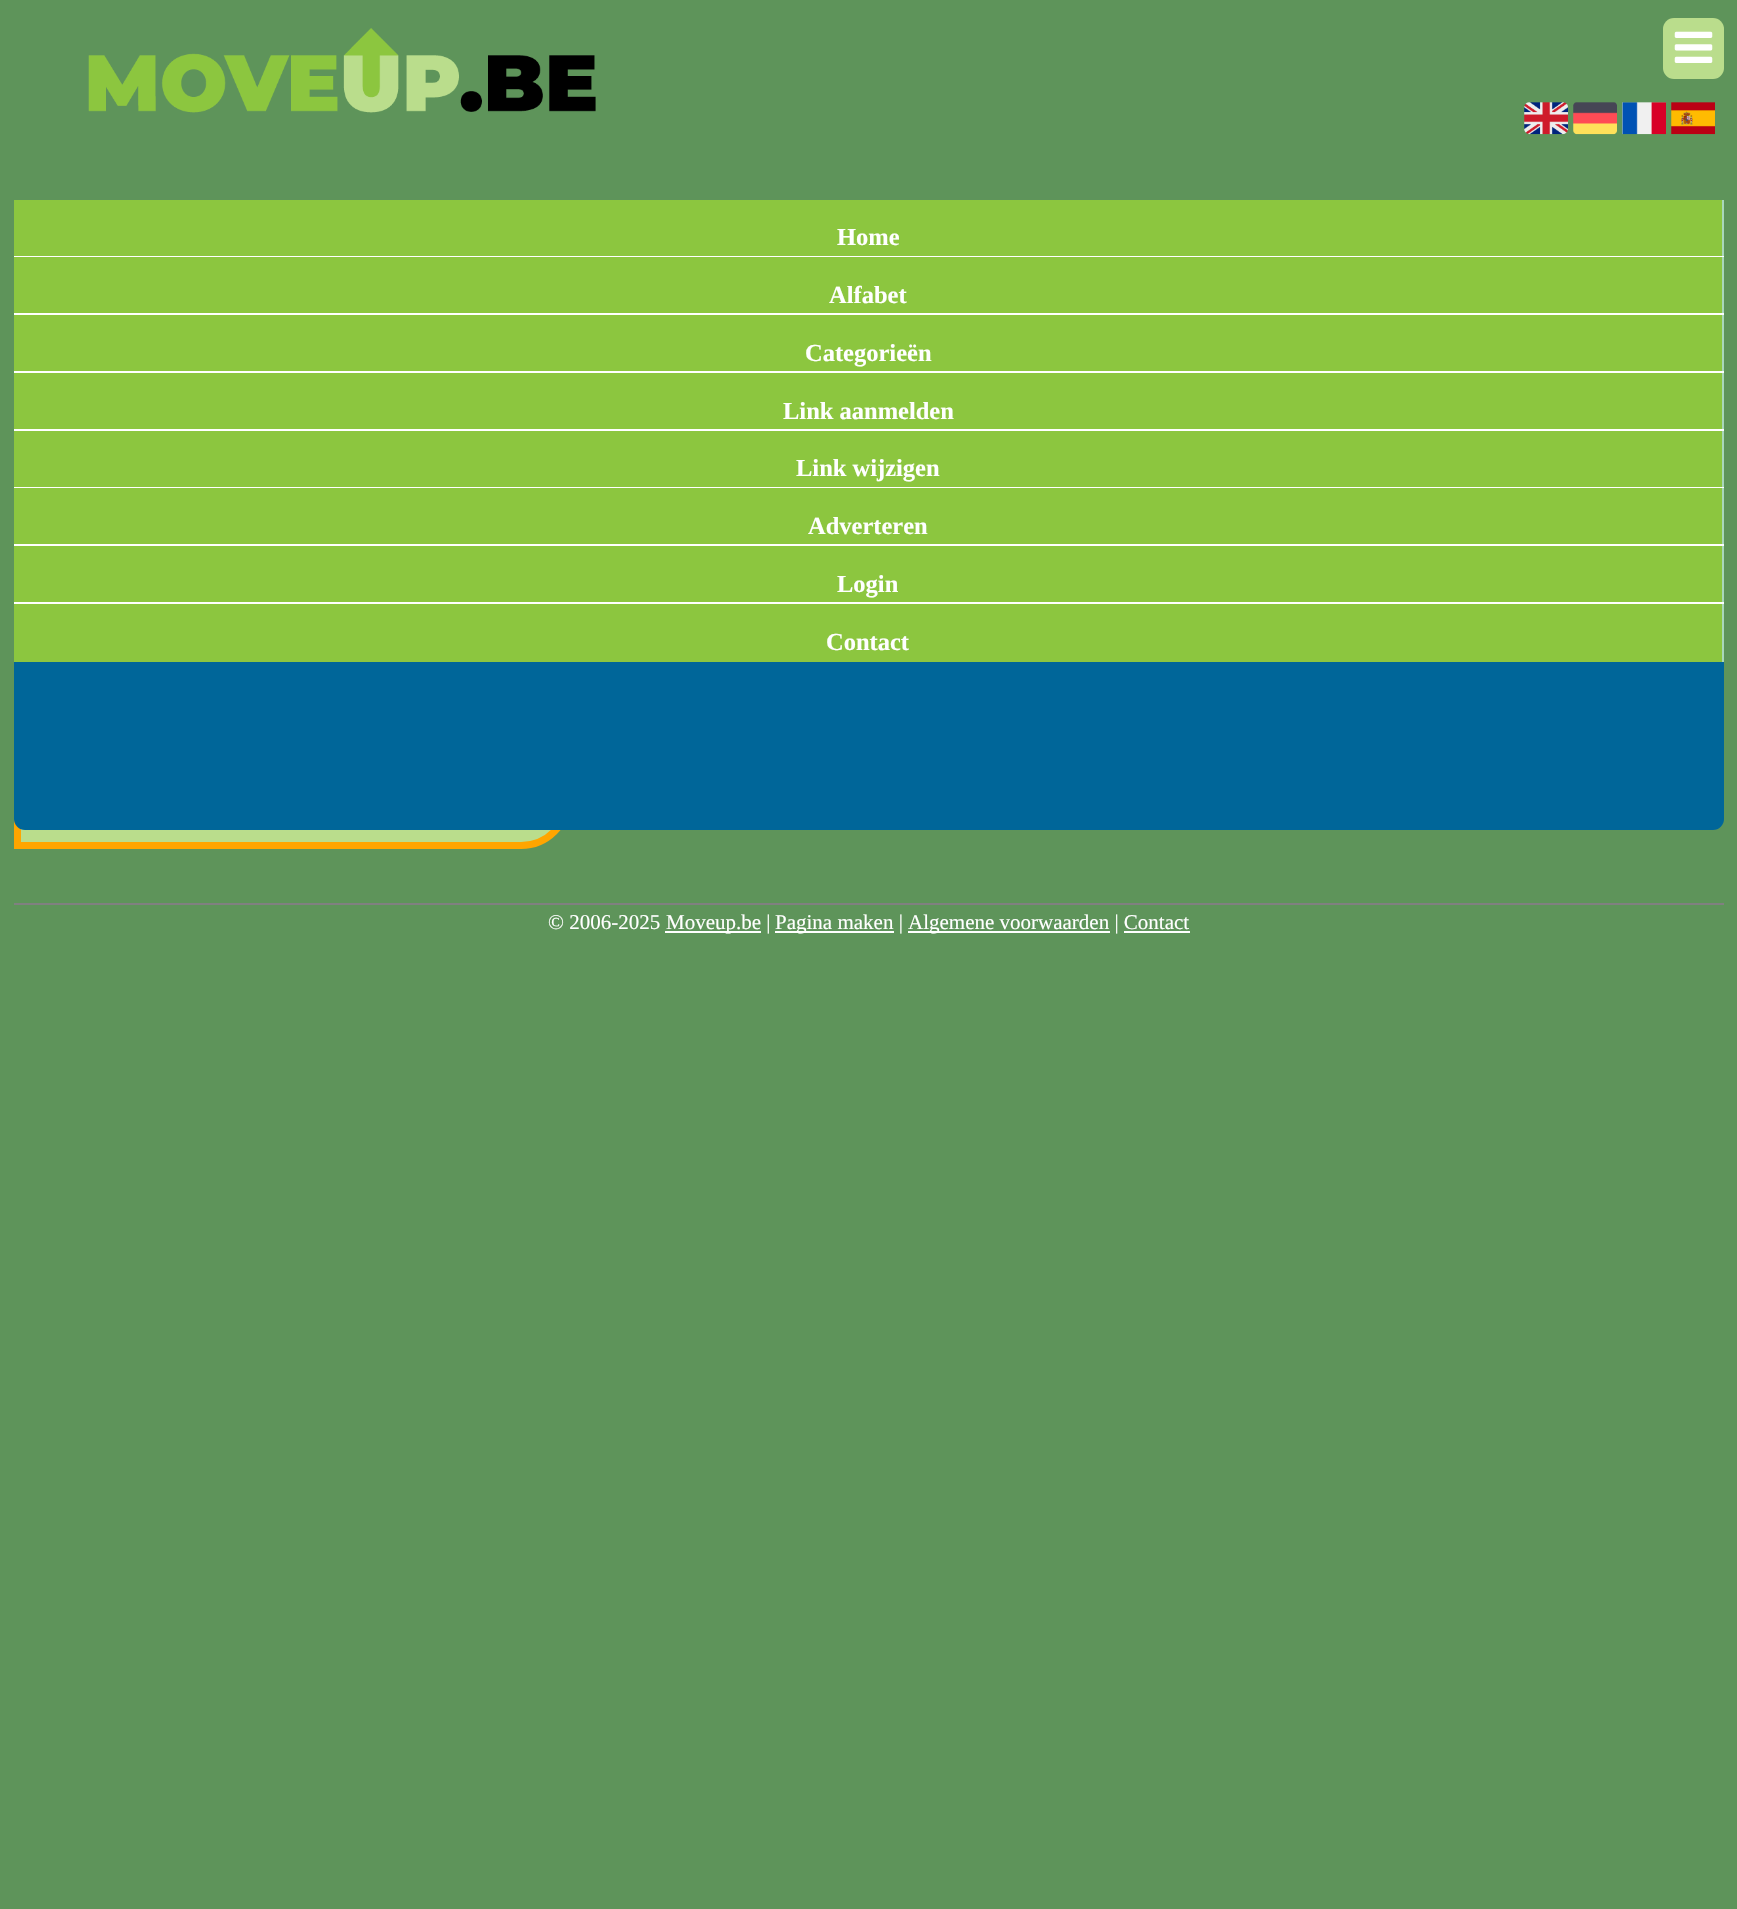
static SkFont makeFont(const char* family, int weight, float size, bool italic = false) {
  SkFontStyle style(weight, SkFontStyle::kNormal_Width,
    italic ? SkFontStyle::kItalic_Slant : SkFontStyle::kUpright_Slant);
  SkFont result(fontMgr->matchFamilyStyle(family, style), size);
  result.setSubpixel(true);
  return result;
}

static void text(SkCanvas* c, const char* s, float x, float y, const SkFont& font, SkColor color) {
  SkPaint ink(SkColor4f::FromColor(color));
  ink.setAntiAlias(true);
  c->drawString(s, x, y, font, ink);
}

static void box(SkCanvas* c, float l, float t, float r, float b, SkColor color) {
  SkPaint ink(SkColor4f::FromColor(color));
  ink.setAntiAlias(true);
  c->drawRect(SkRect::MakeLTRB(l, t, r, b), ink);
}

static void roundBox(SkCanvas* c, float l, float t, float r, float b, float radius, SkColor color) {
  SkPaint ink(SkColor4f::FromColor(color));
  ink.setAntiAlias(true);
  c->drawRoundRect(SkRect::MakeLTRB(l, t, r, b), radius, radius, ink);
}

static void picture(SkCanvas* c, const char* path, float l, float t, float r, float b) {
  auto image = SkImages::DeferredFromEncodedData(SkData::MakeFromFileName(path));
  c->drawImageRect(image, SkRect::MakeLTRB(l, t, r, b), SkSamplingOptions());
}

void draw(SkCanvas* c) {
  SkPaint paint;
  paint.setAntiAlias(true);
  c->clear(0xff5e945a);
  picture(c, "img_01.png", 88, 28, 596, 113);
  roundBox(c, 1663, 18, 1724, 79, 11, 0xffbadd8c);
  picture(c, "img_02.png", 1674, 31, 1713, 63);
  picture(c, "img_03.png", 1524, 102, 1568, 135);
  picture(c, "img_04.png", 1573, 102, 1617, 135);
  picture(c, "img_05.png", 1622, 102, 1666, 135);
  picture(c, "img_06.png", 1671, 102, 1715, 135);
  paint.setColor(0xffbadd8c);
  c->drawPath(SkPathBuilder().moveTo(65, 743.5f).lineTo(568.5f, 743.5f).lineTo(568.5f, 798).cubicTo(568.5f, 824, 547, 845.5f, 521, 845.5f).lineTo(17.5f, 845.5f).lineTo(17.5f, 791).cubicTo(17.5f, 765, 39, 743.5f, 65, 743.5f).close().detach(), paint);
  paint.setStyle(SkPaint::kStroke_Style);
  paint.setStrokeWidth(7);
  paint.setColor(0xffffa500);
  c->drawPath(SkPathBuilder().moveTo(65, 743.5f).lineTo(568.5f, 743.5f).lineTo(568.5f, 798).cubicTo(568.5f, 824, 547, 845.5f, 521, 845.5f).lineTo(17.5f, 845.5f).lineTo(17.5f, 791).cubicTo(17.5f, 765, 39, 743.5f, 65, 743.5f).close().detach(), paint);
  roundBox(c, 14, 200, 1724, 830, 11, 0xff006699);
  box(c, 14, 200, 1722, 256, 0xff8cc63f);
  box(c, 1722, 200, 1724, 662, 0xffa9d7ba);
  box(c, 14, 256, 1724, 257, 0xffffffff);
  SkFont face1 = makeFont("Liberation Serif", 700, 24.5f);
  text(c, "Home", 837, 245, face1, 0xffffffff);
  box(c, 14, 257, 1722, 313, 0xff8cc63f);
  box(c, 14, 313, 1724, 315, 0xffffffff);
  text(c, "Alfabet", 829, 303, face1, 0xffffffff);
  box(c, 14, 315, 1722, 371, 0xff8cc63f);
  box(c, 14, 371, 1724, 373, 0xffffffff);
  text(c, "Categorieën", 805, 361, face1, 0xffffffff);
  box(c, 14, 373, 1722, 429, 0xff8cc63f);
  box(c, 14, 429, 1724, 431, 0xffffffff);
  text(c, "Link aanmelden", 783, 419, face1, 0xffffffff);
  box(c, 14, 431, 1722, 487, 0xff8cc63f);
  box(c, 14, 487, 1724, 488, 0xffffffff);
  text(c, "Link wijzigen", 796, 476, face1, 0xffffffff);
  box(c, 14, 488, 1722, 544, 0xff8cc63f);
  box(c, 14, 544, 1724, 546, 0xffffffff);
  text(c, "Adverteren", 808, 534, face1, 0xffffffff);
  box(c, 14, 546, 1722, 602, 0xff8cc63f);
  box(c, 14, 602, 1724, 604, 0xffffffff);
  text(c, "Login", 837, 592, face1, 0xffffffff);
  box(c, 14, 604, 1722, 662, 0xff8cc63f);
  text(c, "Contact", 826, 650, face1, 0xffffffff);
  box(c, 14, 903, 1724, 905, 0xff808080);
  SkFont face2 = makeFont("Liberation Serif", 400, 21);
  text(c, "© 2006-2025", 548, 929, face2, 0xffffffff);
  box(c, 665, 931, 761, 933, 0xffffffff);
  text(c, "Moveup.be |", 666, 929, face2, 0xffffffff);
  box(c, 775, 931, 894, 933, 0xffffffff);
  text(c, "Pagina maken |", 775, 929, face2, 0xffffffff);
  box(c, 908, 931, 1110, 933, 0xffffffff);
  text(c, "Algemene voorwaarden | Contact", 908, 929, face2, 0xffffffff);
  box(c, 1124, 931, 1190, 933, 0xffffffff);
}
